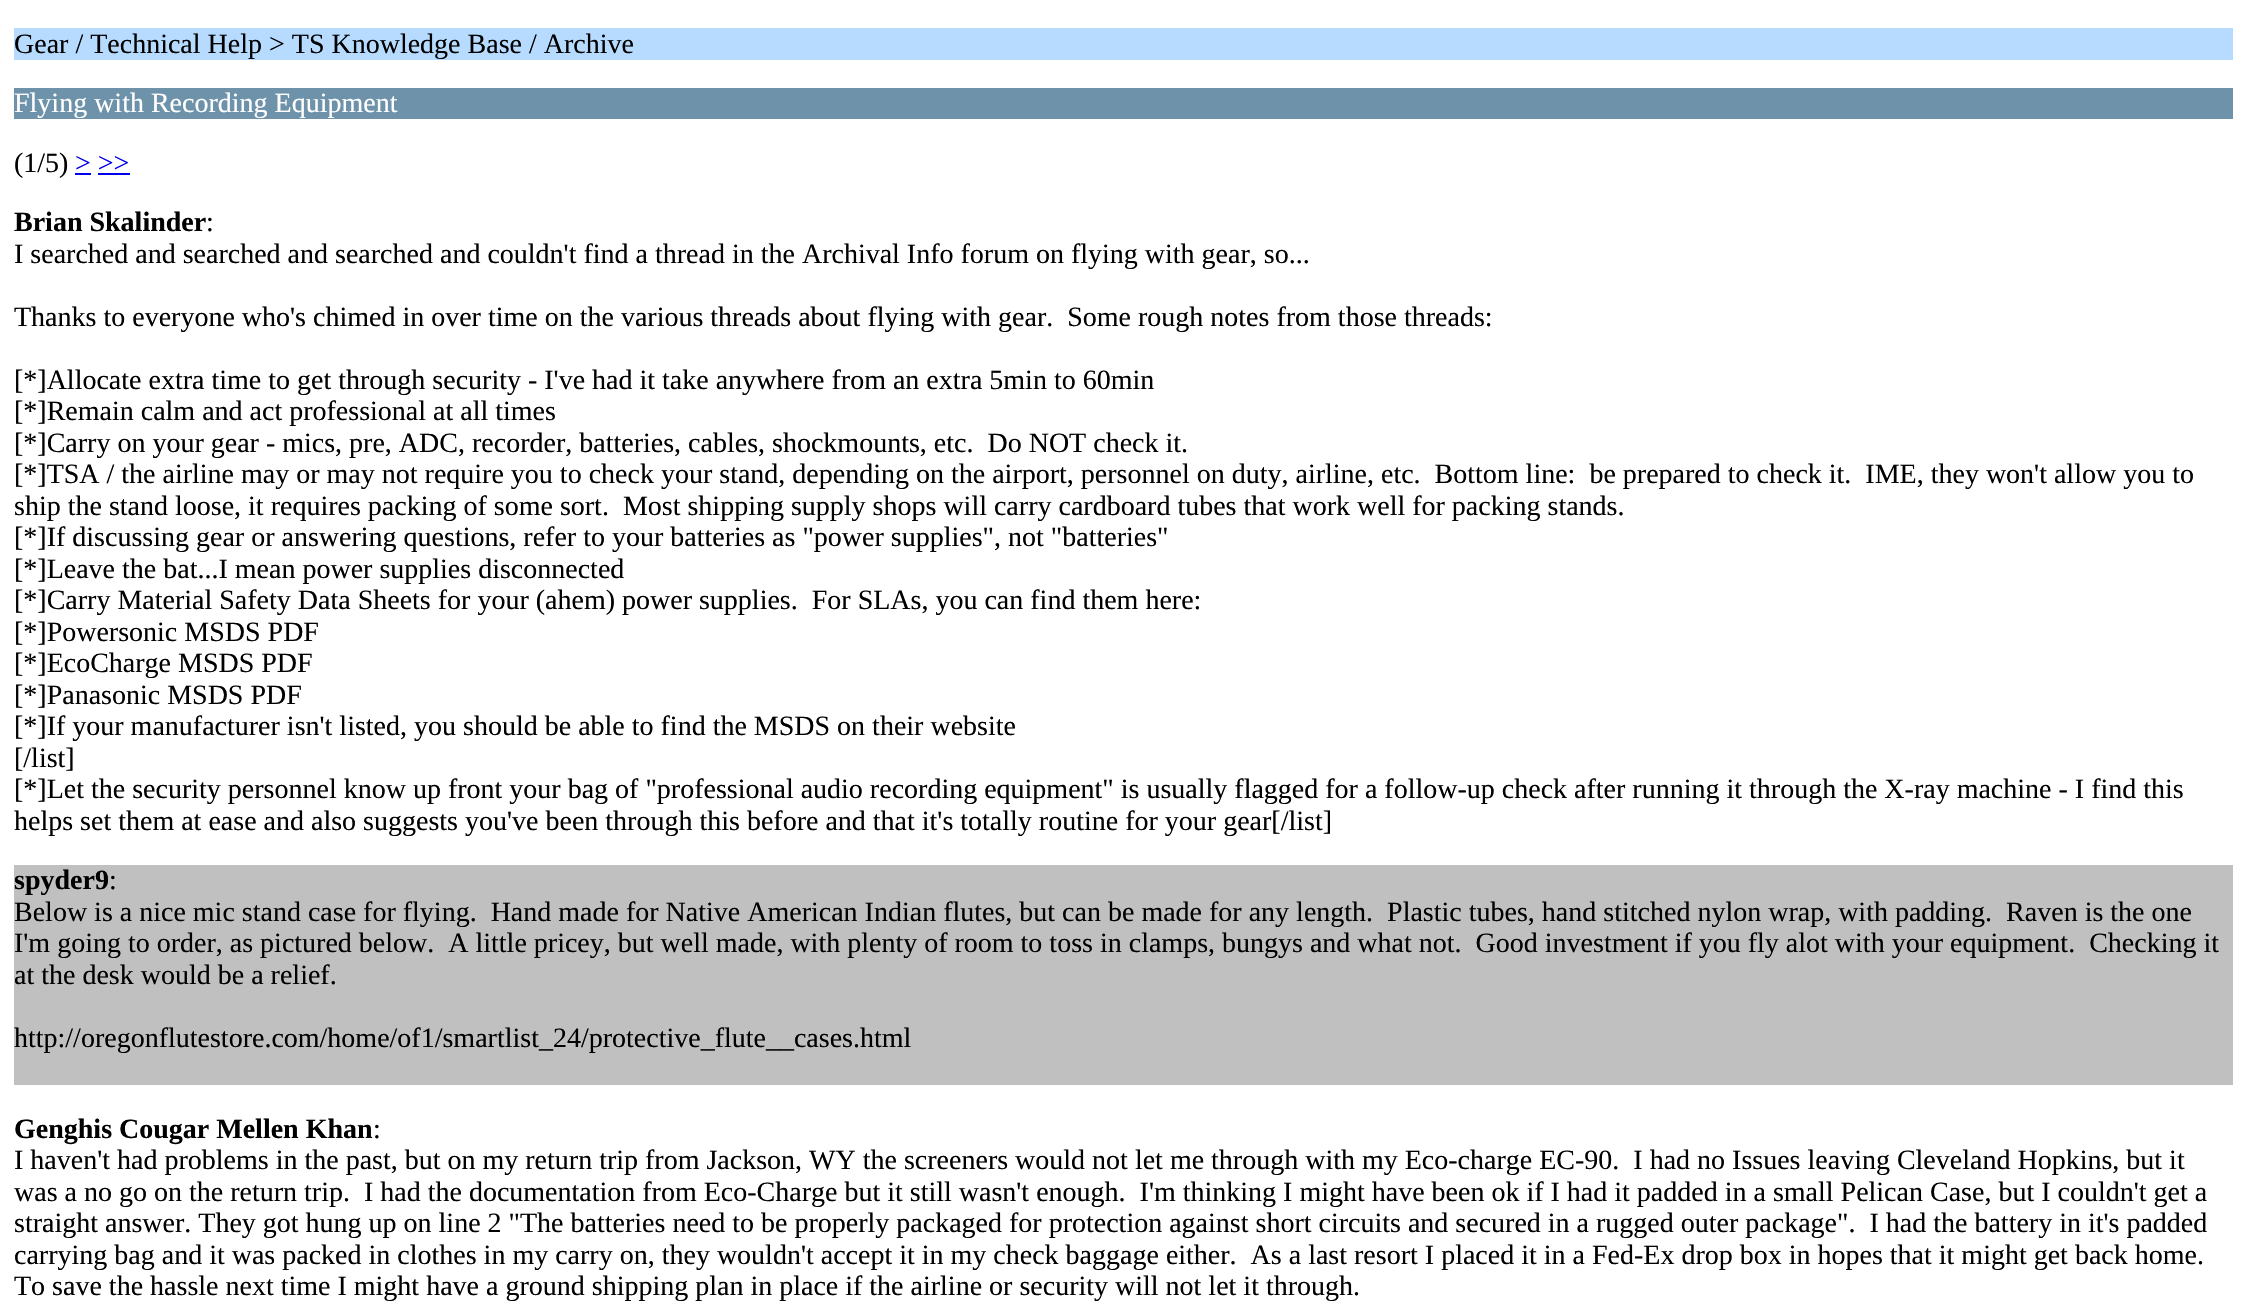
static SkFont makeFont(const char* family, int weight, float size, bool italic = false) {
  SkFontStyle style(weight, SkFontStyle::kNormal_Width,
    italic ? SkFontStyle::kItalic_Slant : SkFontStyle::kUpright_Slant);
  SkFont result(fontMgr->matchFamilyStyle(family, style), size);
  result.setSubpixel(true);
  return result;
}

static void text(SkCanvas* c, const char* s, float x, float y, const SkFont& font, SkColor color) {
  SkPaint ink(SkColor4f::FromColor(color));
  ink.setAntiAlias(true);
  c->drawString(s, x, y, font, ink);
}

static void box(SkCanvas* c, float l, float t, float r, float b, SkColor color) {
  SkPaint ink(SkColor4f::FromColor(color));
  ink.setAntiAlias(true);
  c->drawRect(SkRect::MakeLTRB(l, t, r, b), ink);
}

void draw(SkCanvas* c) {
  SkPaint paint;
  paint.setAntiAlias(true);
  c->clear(0xffffffff);
  box(c, 14, 28, 2233, 60, 0xffb6dbff);
  SkFont face1 = makeFont("Liberation Serif", 400, 28);
  text(c, "Gear / Technical Help > TS Knowledge Base / Archive", 14, 53, face1, 0xff000000);
  box(c, 14, 88, 2233, 119, 0xff6d92aa);
  text(c, "Flying with Recording Equipment", 14, 112, face1, 0xffffffff);
  text(c, "(1/5)", 14, 172, face1, 0xff000000);
  text(c, "> >>", 75, 172, face1, 0xff0000ee);
  box(c, 75, 173, 91, 175, 0xff0000ee);
  box(c, 98, 173, 130, 175, 0xff0000ee);
  SkFont face2 = makeFont("Liberation Serif", 700, 28);
  text(c, "Brian Skalinder", 14, 231, face2, 0xff000000);
  text(c, ":", 206, 231, face1, 0xff000000);
  text(c, "I searched and searched and searched and couldn't find a thread in the Archival Info forum on flying with gear, so...", 14, 263, face1, 0xff000000);
  text(c, "Thanks to everyone who's chimed in over time on the various threads about flying with gear.  Some rough notes from those threads:", 14, 326, face1, 0xff000000);
  text(c, "[*]Allocate extra time to get through security - I've had it take anywhere from an extra 5min to 60min", 14, 389, face1, 0xff000000);
  text(c, "[*]Remain calm and act professional at all times", 14, 420, face1, 0xff000000);
  text(c, "[*]Carry on your gear - mics, pre, ADC, recorder, batteries, cables, shockmounts, etc.  Do NOT check it.", 14, 452, face1, 0xff000000);
  text(c, "[*]TSA / the airline may or may not require you to check your stand, depending on the airport, personnel on duty, airline, etc.  Bottom line:  be prepared to check it.  IME, they won't allow you to", 14, 483, face1, 0xff000000);
  text(c, "ship the stand loose, it requires packing of some sort.  Most shipping supply shops will carry cardboard tubes that work well for packing stands.", 14, 515, face1, 0xff000000);
  text(c, "[*]If discussing gear or answering questions, refer to your batteries as \"power supplies\", not \"batteries\"", 14, 546, face1, 0xff000000);
  text(c, "[*]Leave the bat...I mean power supplies disconnected", 14, 578, face1, 0xff000000);
  text(c, "[*]Carry Material Safety Data Sheets for your (ahem) power supplies.  For SLAs, you can find them here:", 14, 609, face1, 0xff000000);
  text(c, "[*]Powersonic MSDS PDF", 14, 641, face1, 0xff000000);
  text(c, "[*]EcoCharge MSDS PDF", 14, 672, face1, 0xff000000);
  text(c, "[*]Panasonic MSDS PDF", 14, 704, face1, 0xff000000);
  text(c, "[*]If your manufacturer isn't listed, you should be able to find the MSDS on their website", 14, 735, face1, 0xff000000);
  text(c, "[/list]", 14, 767, face1, 0xff000000);
  text(c, "[*]Let the security personnel know up front your bag of \"professional audio recording equipment\" is usually flagged for a follow-up check after running it through the X-ray machine - I find this", 14, 798, face1, 0xff000000);
  text(c, "helps set them at ease and also suggests you've been through this before and that it's totally routine for your gear[/list]", 14, 830, face1, 0xff000000);
  box(c, 14, 865, 2233, 1085, 0xffc0c0c0);
  text(c, "spyder9", 14, 889, face2, 0xff000000);
  text(c, ":", 109, 889, face1, 0xff000000);
  text(c, "Below is a nice mic stand case for flying.  Hand made for Native American Indian flutes, but can be made for any length.  Plastic tubes, hand stitched nylon wrap, with padding.  Raven is the one", 14, 921, face1, 0xff000000);
  text(c, "I'm going to order, as pictured below.  A little pricey, but well made, with plenty of room to toss in clamps, bungys and what not.  Good investment if you fly alot with your equipment.  Checking it", 14, 952, face1, 0xff000000);
  text(c, "at the desk would be a relief.", 14, 984, face1, 0xff000000);
  text(c, "http://oregonflutestore.com/home/of1/smartlist_24/protective_flute__cases.html", 14, 1047, face1, 0xff000000);
  text(c, "Genghis Cougar Mellen Khan", 14, 1138, face2, 0xff000000);
  text(c, ":", 373, 1138, face1, 0xff000000);
  text(c, "I haven't had problems in the past, but on my return trip from Jackson, WY the screeners would not let me through with my Eco-charge EC-90.  I had no Issues leaving Cleveland Hopkins, but it", 14, 1169, face1, 0xff000000);
  text(c, "was a no go on the return trip.  I had the documentation from Eco-Charge but it still wasn't enough.  I'm thinking I might have been ok if I had it padded in a small Pelican Case, but I couldn't get a", 14, 1201, face1, 0xff000000);
  text(c, "straight answer. They got hung up on line 2 \"The batteries need to be properly packaged for protection against short circuits and secured in a rugged outer package\".  I had the battery in it's padded", 14, 1232, face1, 0xff000000);
  text(c, "carrying bag and it was packed in clothes in my carry on, they wouldn't accept it in my check baggage either.  As a last resort I placed it in a Fed-Ex drop box in hopes that it might get back home.", 14, 1264, face1, 0xff000000);
  text(c, "To save the hassle next time I might have a ground shipping plan in place if the airline or security will not let it through.", 14, 1295, face1, 0xff000000);
}
